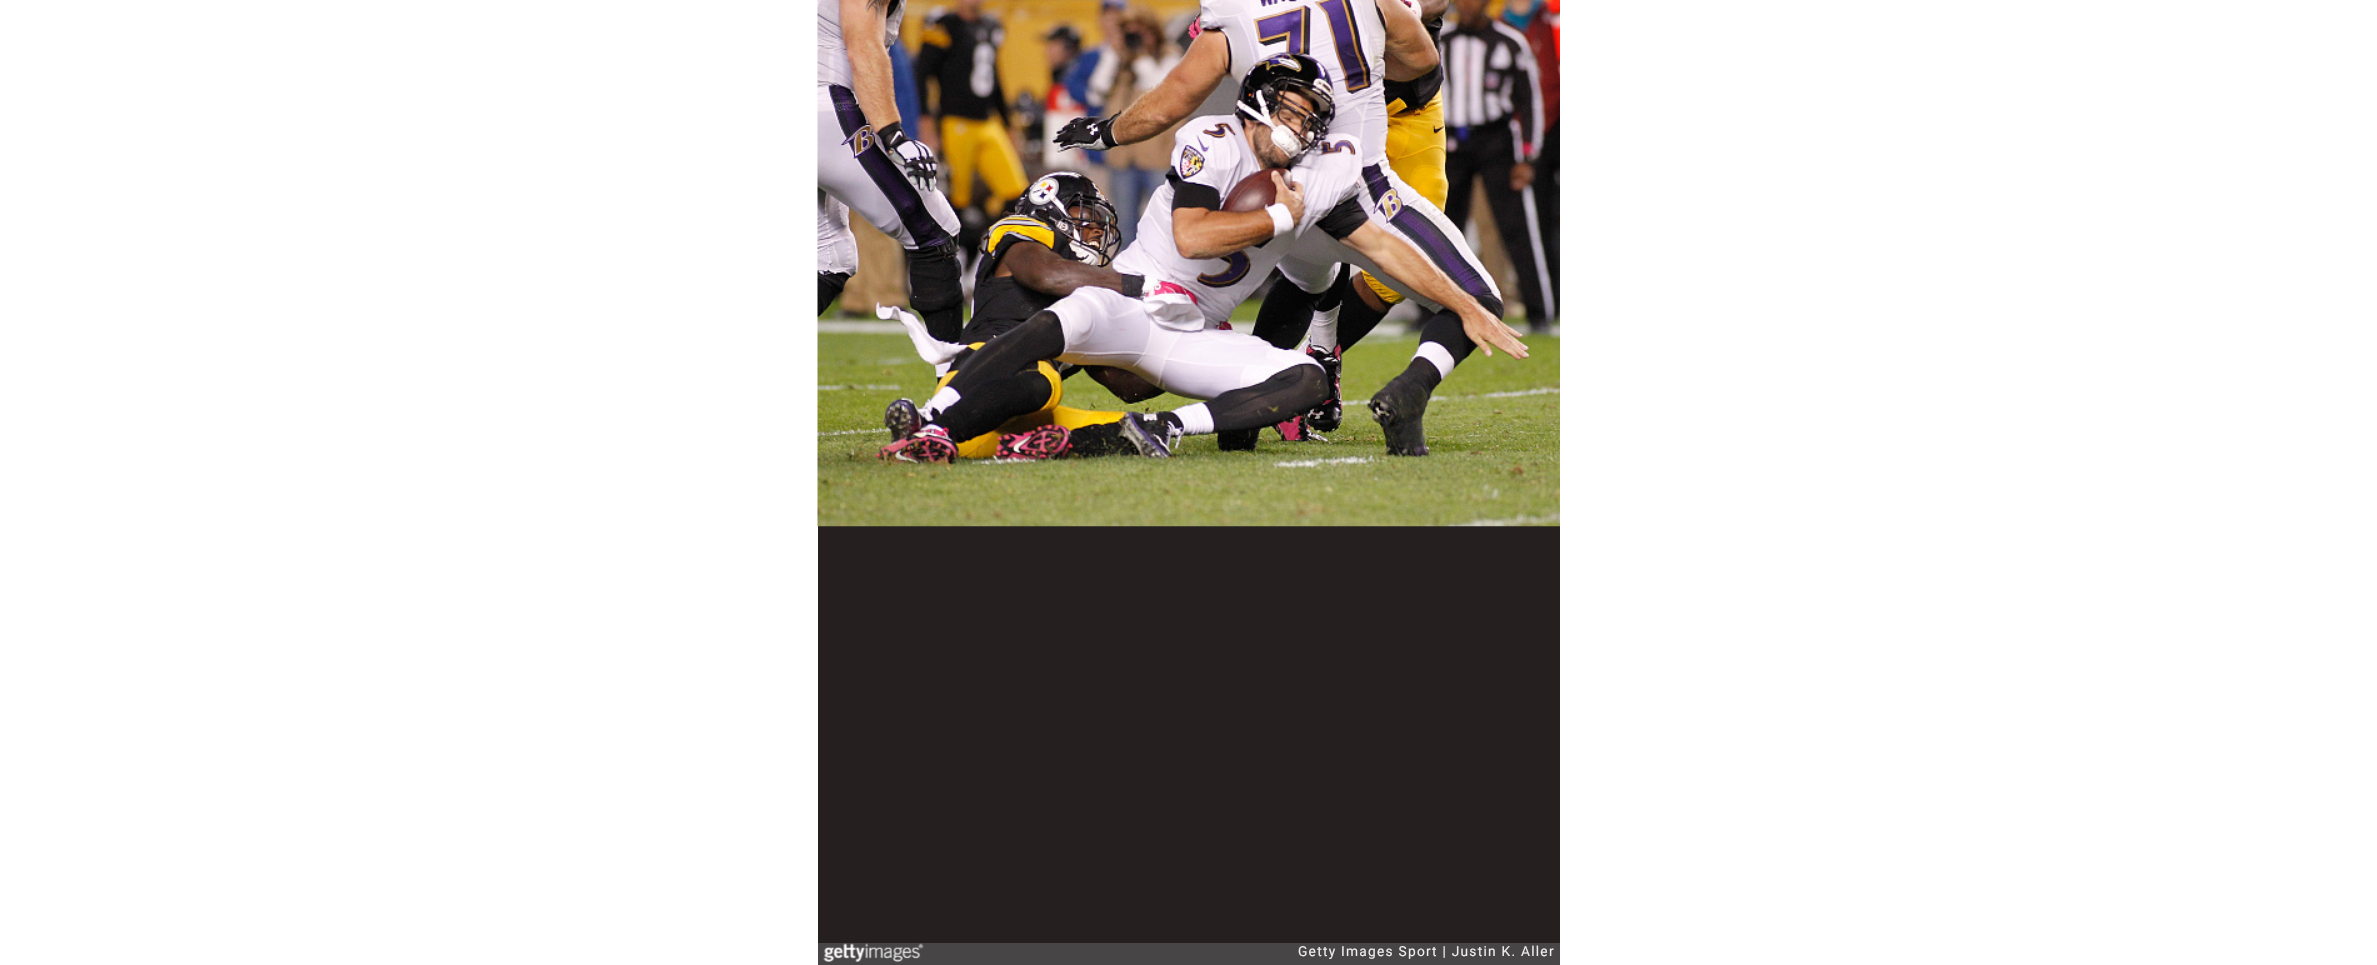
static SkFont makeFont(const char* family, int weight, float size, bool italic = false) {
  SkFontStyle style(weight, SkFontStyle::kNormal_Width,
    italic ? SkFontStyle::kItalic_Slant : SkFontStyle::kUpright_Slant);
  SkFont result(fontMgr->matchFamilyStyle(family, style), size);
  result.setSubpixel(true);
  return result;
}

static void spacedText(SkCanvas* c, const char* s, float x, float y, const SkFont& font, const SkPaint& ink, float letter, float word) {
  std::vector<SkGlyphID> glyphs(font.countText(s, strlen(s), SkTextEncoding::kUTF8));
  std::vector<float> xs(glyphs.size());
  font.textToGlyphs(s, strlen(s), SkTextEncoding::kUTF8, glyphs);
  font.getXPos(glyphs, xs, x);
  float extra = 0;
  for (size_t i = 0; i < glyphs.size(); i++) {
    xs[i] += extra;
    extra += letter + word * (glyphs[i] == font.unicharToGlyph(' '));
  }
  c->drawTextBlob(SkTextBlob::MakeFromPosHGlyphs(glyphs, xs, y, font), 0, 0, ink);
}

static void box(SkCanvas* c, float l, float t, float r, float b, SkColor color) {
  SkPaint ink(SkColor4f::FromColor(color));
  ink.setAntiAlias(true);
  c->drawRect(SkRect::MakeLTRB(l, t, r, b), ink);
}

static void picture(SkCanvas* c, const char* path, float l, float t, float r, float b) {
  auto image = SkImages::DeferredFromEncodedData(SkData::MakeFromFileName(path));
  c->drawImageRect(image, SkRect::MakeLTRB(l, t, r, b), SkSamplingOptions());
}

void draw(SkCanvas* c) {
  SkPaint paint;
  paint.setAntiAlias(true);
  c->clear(0xffffffff);
  box(c, 818, 526, 1560, 943, 0xff251f20);
  picture(c, "img_01.png", 817, 0, 1560, 527);
  box(c, 818, 943, 1560, 965, 0xff474545);
  picture(c, "img_02.png", 823, 943, 924, 962);
  SkFont face1 = makeFont("Roboto", 400, 13.75f);
  paint.setColor(0xffeeeeee);
  spacedText(c, "Getty Images Sport | Justin K. Aller", 1298, 956, face1, paint, 1.25f, 0);
}
